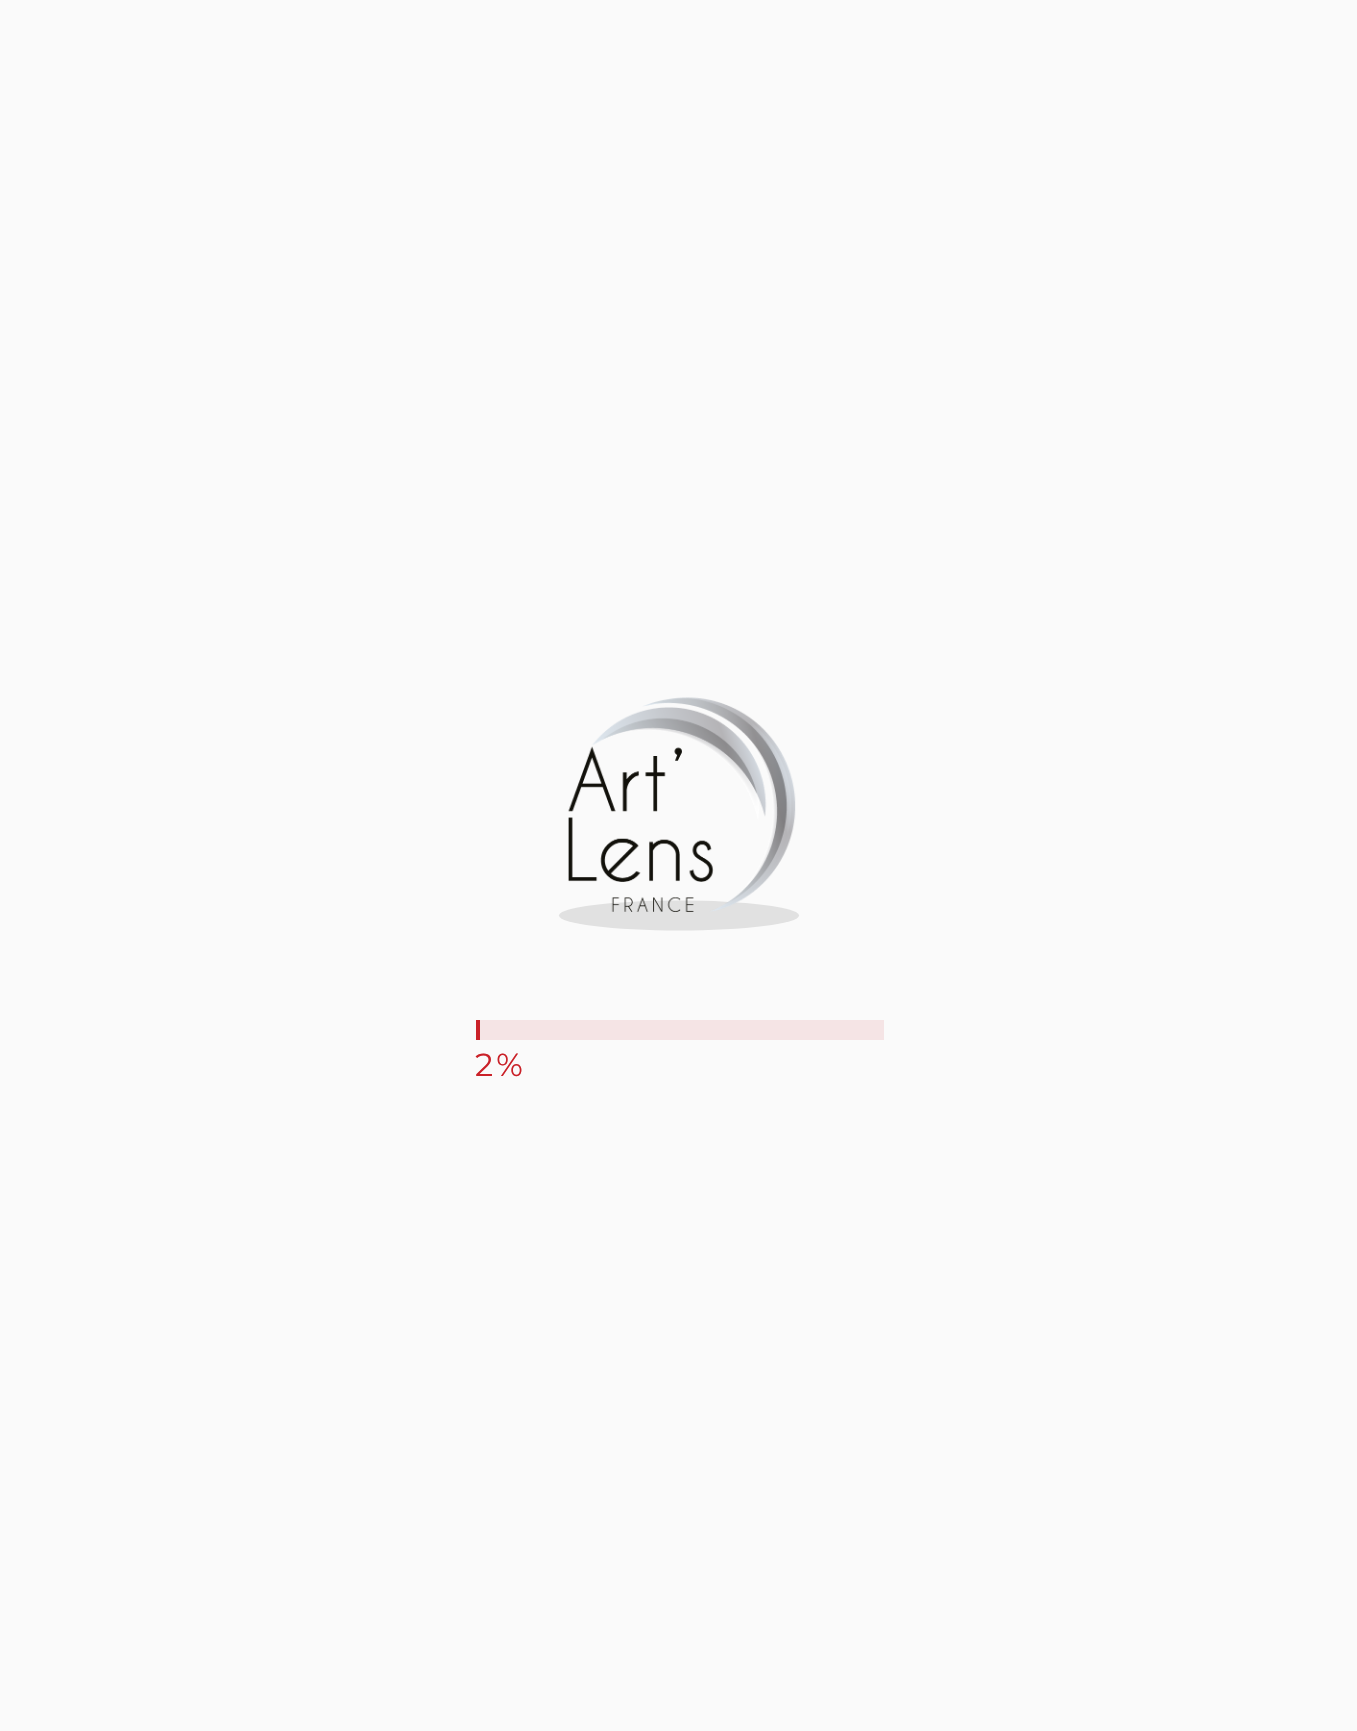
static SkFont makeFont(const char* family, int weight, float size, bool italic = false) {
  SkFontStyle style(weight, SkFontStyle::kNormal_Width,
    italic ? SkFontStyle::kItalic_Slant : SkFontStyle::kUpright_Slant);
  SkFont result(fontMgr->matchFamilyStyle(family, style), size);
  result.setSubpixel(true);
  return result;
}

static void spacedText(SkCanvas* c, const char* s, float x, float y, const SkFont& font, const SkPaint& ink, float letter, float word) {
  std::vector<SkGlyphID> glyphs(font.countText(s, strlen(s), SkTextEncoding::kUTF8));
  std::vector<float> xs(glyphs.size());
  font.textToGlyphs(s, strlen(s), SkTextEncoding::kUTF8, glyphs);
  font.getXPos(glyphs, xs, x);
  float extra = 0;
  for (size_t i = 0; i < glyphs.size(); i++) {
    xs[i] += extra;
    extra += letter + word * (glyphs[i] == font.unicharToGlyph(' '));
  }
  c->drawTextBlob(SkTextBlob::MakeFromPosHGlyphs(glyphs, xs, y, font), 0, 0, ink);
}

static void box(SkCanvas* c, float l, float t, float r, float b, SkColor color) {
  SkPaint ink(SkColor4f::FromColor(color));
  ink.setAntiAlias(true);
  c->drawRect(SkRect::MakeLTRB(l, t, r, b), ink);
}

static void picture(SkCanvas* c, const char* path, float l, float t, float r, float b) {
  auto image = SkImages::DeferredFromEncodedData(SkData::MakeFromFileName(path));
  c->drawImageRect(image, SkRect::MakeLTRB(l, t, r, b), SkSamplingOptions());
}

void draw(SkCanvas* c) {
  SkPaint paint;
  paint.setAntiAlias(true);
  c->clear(0xfffafafa);
  paint.setColor(0xffe1e1e1);
  c->drawOval(SkRect::MakeLTRB(559, 900.5f, 799, 930.5f), paint);
  picture(c, "img_01.png", 568, 697, 796, 912);
  box(c, 476, 1020, 480, 1040, 0xffca2128);
  box(c, 480, 1020, 884, 1040, 0xfff5e4e5);
  SkFont face1 = makeFont("Montserrat", 400, 32);
  paint.setColor(0xffca2128);
  spacedText(c, "2%", 475, 1076, face1, paint, 3, 0);
}
